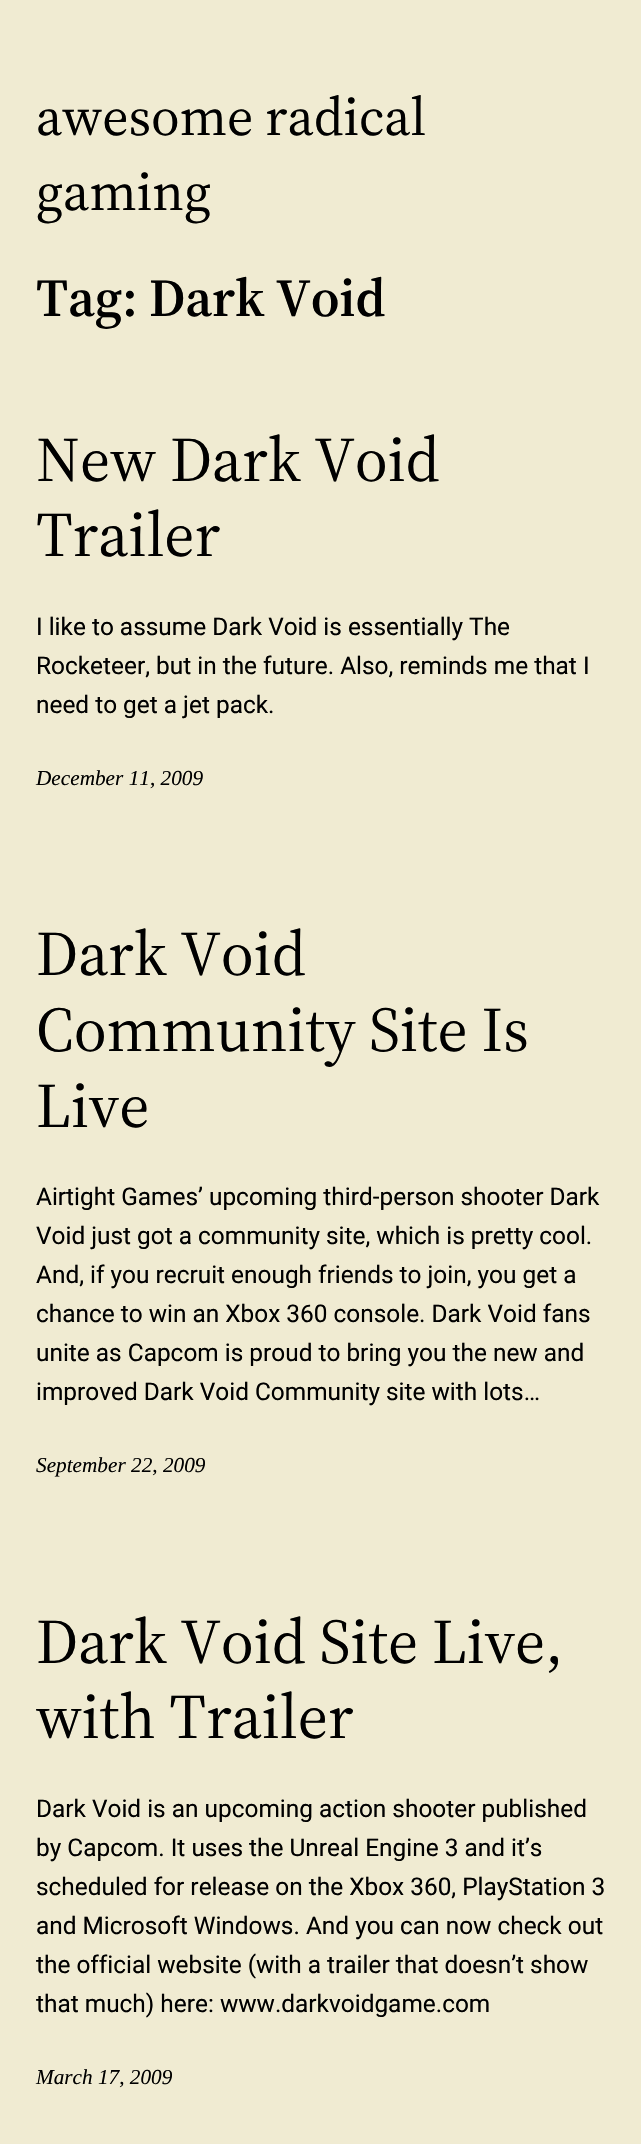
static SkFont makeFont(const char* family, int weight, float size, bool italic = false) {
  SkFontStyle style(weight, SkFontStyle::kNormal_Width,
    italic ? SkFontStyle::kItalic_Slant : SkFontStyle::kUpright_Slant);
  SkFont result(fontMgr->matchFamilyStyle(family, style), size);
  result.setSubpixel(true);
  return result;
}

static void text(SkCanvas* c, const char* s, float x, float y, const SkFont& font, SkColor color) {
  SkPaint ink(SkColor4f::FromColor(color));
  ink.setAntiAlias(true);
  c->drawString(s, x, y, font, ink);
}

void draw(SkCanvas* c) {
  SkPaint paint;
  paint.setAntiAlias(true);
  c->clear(0xfff0ebd2);
  SkFont face1 = makeFont("Source Serif 4", 400, 54);
  text(c, "awesome radical", 36, 135, face1, 0xff000000);
  text(c, "gaming", 36, 210, face1, 0xff000000);
  SkFont face2 = makeFont("Source Serif 4", 600, 53.5f);
  text(c, "Tag: Dark Void", 36, 316, face2, 0xff000000);
  SkFont face3 = makeFont("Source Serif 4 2", 400, 63);
  text(c, "New Dark Void", 36, 481, face3, 0xff000000);
  text(c, "Trailer", 36, 556, face3, 0xff000000);
  SkFont face4 = makeFont("Roboto", 400, 24.4f);
  text(c, "I like to assume Dark Void is essentially The", 36, 635, face4, 0xff000000);
  text(c, "Rocketeer, but in the future. Also, reminds me that I", 36, 674, face4, 0xff000000);
  text(c, "need to get a jet pack.", 36, 713, face4, 0xff000000);
  SkFont face5 = makeFont("Liberation Serif", 400, 21.25f, true);
  text(c, "December 11, 2009", 36, 785, face5, 0xff000000);
  text(c, "Dark Void", 36, 975, face3, 0xff000000);
  text(c, "Community Site Is", 36, 1051, face3, 0xff000000);
  text(c, "Live", 36, 1127, face3, 0xff000000);
  text(c, "Airtight Games’ upcoming third-person shooter Dark", 36, 1205, face4, 0xff000000);
  text(c, "Void just got a community site, which is pretty cool.", 36, 1244, face4, 0xff000000);
  text(c, "And, if you recruit enough friends to join, you get a", 36, 1283, face4, 0xff000000);
  text(c, "chance to win an Xbox 360 console. Dark Void fans", 36, 1322, face4, 0xff000000);
  text(c, "unite as Capcom is proud to bring you the new and", 36, 1361, face4, 0xff000000);
  text(c, "improved Dark Void Community site with lots…", 36, 1400, face4, 0xff000000);
  text(c, "September 22, 2009", 36, 1472, face5, 0xff000000);
  text(c, "Dark Void Site Live,", 36, 1663, face3, 0xff000000);
  text(c, "with Trailer", 36, 1738, face3, 0xff000000);
  text(c, "Dark Void is an upcoming action shooter published", 36, 1817, face4, 0xff000000);
  text(c, "by Capcom. It uses the Unreal Engine 3 and it’s", 36, 1856, face4, 0xff000000);
  text(c, "scheduled for release on the Xbox 360, PlayStation 3", 36, 1895, face4, 0xff000000);
  text(c, "and Microsoft Windows. And you can now check out", 36, 1934, face4, 0xff000000);
  text(c, "the official website (with a trailer that doesn’t show", 36, 1973, face4, 0xff000000);
  text(c, "that much) here: www.darkvoidgame.com", 36, 2012, face4, 0xff000000);
  text(c, "March 17, 2009", 36, 2084, face5, 0xff000000);
}
